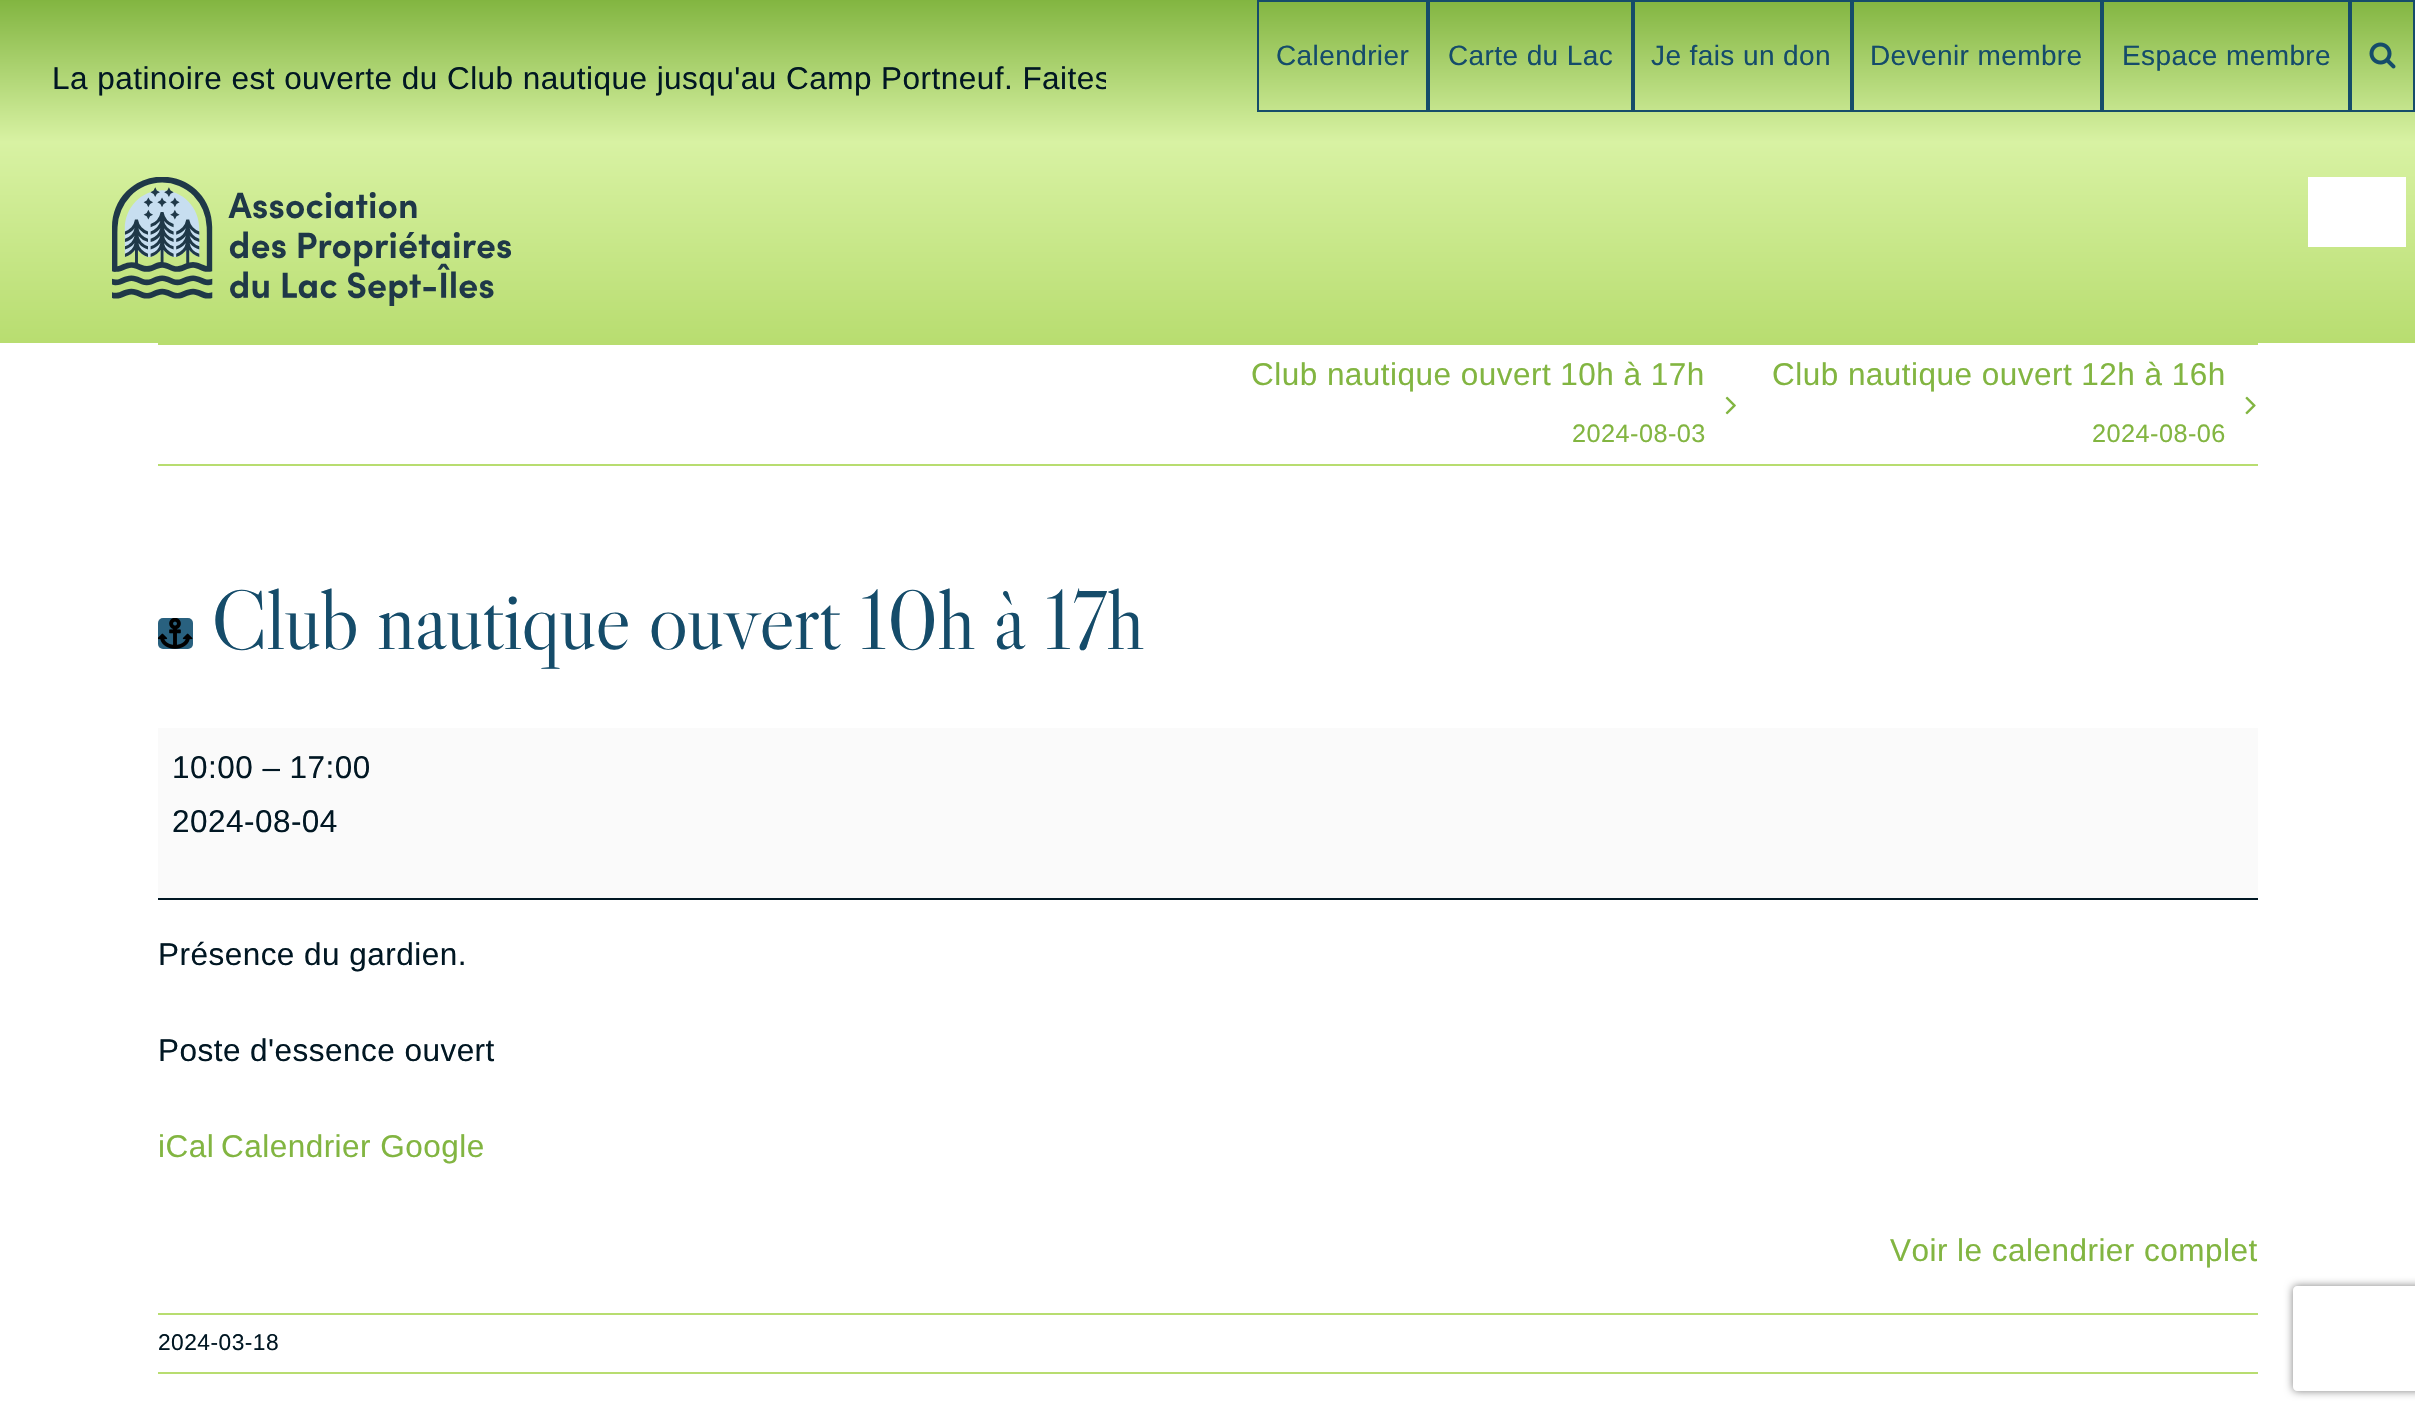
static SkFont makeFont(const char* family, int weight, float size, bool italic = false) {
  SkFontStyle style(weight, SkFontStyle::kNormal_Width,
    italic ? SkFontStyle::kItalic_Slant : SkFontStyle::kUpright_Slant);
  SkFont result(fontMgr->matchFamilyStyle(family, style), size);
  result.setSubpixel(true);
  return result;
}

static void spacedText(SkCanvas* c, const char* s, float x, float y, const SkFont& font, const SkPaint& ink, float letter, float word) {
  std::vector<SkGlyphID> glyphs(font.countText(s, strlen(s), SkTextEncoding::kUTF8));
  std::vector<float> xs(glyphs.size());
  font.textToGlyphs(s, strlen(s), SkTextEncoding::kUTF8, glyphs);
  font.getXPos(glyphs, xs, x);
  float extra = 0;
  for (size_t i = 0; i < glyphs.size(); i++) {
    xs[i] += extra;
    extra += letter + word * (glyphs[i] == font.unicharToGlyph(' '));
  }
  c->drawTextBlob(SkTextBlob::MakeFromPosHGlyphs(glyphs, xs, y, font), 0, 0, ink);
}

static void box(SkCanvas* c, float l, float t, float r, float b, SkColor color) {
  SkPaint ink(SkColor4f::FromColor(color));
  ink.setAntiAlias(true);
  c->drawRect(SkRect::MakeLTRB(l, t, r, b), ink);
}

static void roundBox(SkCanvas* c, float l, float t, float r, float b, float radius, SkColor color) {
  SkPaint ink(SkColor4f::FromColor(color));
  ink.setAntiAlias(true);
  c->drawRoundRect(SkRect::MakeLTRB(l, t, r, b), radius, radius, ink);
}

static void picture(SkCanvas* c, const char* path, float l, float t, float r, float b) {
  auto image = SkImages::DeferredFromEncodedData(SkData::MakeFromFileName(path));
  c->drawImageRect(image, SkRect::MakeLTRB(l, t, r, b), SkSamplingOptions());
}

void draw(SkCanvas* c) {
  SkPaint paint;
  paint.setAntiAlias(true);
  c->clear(0xffffffff);
  {
    const SkColor colors[] = {0xff82b541, 0xffd8f2a3};
    const float stops[] = {0, 1};
    const SkPoint ends[] = {{1208, 0}, {1208, 142}};
    paint.setShader(SkGradientShader::MakeLinear(ends, colors, stops, 2, SkTileMode::kClamp));
    paint.setAlpha(255);
  }
  c->drawRect(SkRect::MakeLTRB(0, 0, 2415, 142), paint);
  paint.setStyle(SkPaint::kStroke_Style);
  paint.setStrokeWidth(2);
  paint.setShader(nullptr);
  paint.setColor(0xff154c6a);
  c->drawRect(SkRect::MakeLTRB(1258, 1, 1427, 111), paint);
  SkFont face1 = makeFont("Liberation Sans", 400, 28);
  paint.setStyle(SkPaint::kFill_Style);
  spacedText(c, "Calendrier", 1276, 65, face1, paint, 0.4f, 0);
  paint.setStyle(SkPaint::kStroke_Style);
  c->drawRect(SkRect::MakeLTRB(1429, 1, 1632, 111), paint);
  paint.setStyle(SkPaint::kFill_Style);
  spacedText(c, "Carte du Lac", 1448, 65, face1, paint, 0.4f, 0);
  paint.setStyle(SkPaint::kStroke_Style);
  c->drawRect(SkRect::MakeLTRB(1634, 1, 1851, 111), paint);
  paint.setStyle(SkPaint::kFill_Style);
  spacedText(c, "Je fais un don", 1651, 65, face1, paint, 0.4f, 0);
  paint.setStyle(SkPaint::kStroke_Style);
  c->drawRect(SkRect::MakeLTRB(1853, 1, 2101, 111), paint);
  paint.setStyle(SkPaint::kFill_Style);
  spacedText(c, "Devenir membre", 1870, 65, face1, paint, 0.4f, 0);
  paint.setStyle(SkPaint::kStroke_Style);
  c->drawRect(SkRect::MakeLTRB(2103, 1, 2349, 111), paint);
  paint.setStyle(SkPaint::kFill_Style);
  spacedText(c, "Espace membre", 2122, 65, face1, paint, 0.4f, 0);
  paint.setStyle(SkPaint::kStroke_Style);
  c->drawRect(SkRect::MakeLTRB(2351, 1, 2414, 111), paint);
  picture(c, "img_01.png", 2369, 42, 2396, 69);
  c->save();
  c->clipRect(SkRect::MakeLTRB(53, 53, 1106, 107));
  SkFont face2 = makeFont("Liberation Sans", 400, 31.5f);
  paint.setStyle(SkPaint::kFill_Style);
  paint.setColor(0xff011723);
  spacedText(c, "La patinoire est ouverte du Club nautique jusqu'au Camp Portneuf. Faites", 52, 89, face2, paint, 0.47f, 0);
  c->restore();
  {
    const SkColor colors[] = {0xffd8f2a3, 0xffb8dd70};
    const float stops[] = {0, 1};
    const SkPoint ends[] = {{1208, 142}, {1208, 343}};
    paint.setShader(SkGradientShader::MakeLinear(ends, colors, stops, 2, SkTileMode::kClamp));
    paint.setAlpha(255);
  }
  c->drawRect(SkRect::MakeLTRB(0, 142, 2415, 343), paint);
  picture(c, "img_02.png", 112, 177, 511, 306);
  box(c, 2308, 177, 2406, 247, 0xffffffff);
  box(c, 158, 343, 2258, 345, 0xffb8dd70);
  box(c, 158, 464, 2258, 466, 0xffb8dd70);
  paint.setShader(nullptr);
  paint.setColor(0xff82b541);
  spacedText(c, "Club nautique ouvert 10h à 17h", 1251, 385, face2, paint, 0.47f, 0);
  picture(c, "img_03.png", 1725, 396, 1736, 415);
  SkFont face3 = makeFont("Liberation Sans", 400, 25.25f);
  spacedText(c, "2024-08-03", 1572, 442, face3, paint, 0.47f, 0);
  spacedText(c, "Club nautique ouvert 12h à 16h", 1772, 385, face2, paint, 0.47f, 0);
  picture(c, "img_04.png", 2245, 396, 2256, 415);
  spacedText(c, "2024-08-06", 2092, 442, face3, paint, 0.47f, 0);
  roundBox(c, 158, 618, 193, 649, 5, 0xff29617f);
  picture(c, "img_05.png", 158, 618, 193, 649);
  SkFont face4 = makeFont("Libre Caslon Display", 400, 84);
  paint.setColor(0xff154c6a);
  spacedText(c, "Club nautique ouvert 10h à 17h", 211, 649, face4, paint, -1.25f, 0);
  box(c, 158, 728, 2258, 898, 0xfffafafa);
  box(c, 158, 898, 2258, 900, 0xff011723);
  paint.setColor(0xff011723);
  spacedText(c, "10:00 – 17:00", 172, 778, face2, paint, 0.47f, 0);
  spacedText(c, "2024-08-04", 172, 832, face2, paint, 0.47f, 0);
  spacedText(c, "Présence du gardien.", 158, 965, face2, paint, 0.47f, 0);
  spacedText(c, "Poste d'essence ouvert", 158, 1061, face2, paint, 0.47f, 0);
  paint.setColor(0xff82b541);
  spacedText(c, "iCal", 158, 1157, face2, paint, 0.47f, 0);
  spacedText(c, "Calendrier Google", 221, 1157, face2, paint, 0.47f, 0);
  spacedText(c, "Voir le calendrier complet", 1890, 1261, face2, paint, 0.47f, 0);
  box(c, 158, 1313, 2258, 1315, 0xffb8dd70);
  box(c, 158, 1372, 2258, 1374, 0xffb8dd70);
  SkFont face5 = makeFont("Liberation Sans", 400, 22.75f);
  paint.setColor(0xff011723);
  spacedText(c, "2024-03-18", 158, 1350, face5, paint, 0.47f, 0);
  c->save();
  c->clipPath(SkPathBuilder(SkPathFillType::kEvenOdd).moveTo(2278, 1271).lineTo(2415, 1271).lineTo(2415, 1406).lineTo(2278, 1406).close().moveTo(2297, 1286).lineTo(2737, 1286).cubicTo(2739, 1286, 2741, 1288, 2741, 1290).lineTo(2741, 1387).cubicTo(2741, 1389, 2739, 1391, 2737, 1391).lineTo(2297, 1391).cubicTo(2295, 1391, 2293, 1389, 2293, 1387).lineTo(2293, 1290).cubicTo(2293, 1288, 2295, 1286, 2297, 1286).close().detach(), true);
  paint.setColor(0xff808080);
  paint.setMaskFilter(SkMaskFilter::MakeBlur(kNormal_SkBlurStyle, 4.5f));
  c->drawRoundRect(SkRect::MakeLTRB(2293, 1286, 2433, 1391), 4, 4, paint);
  paint.setMaskFilter(nullptr);
  c->restore();
}
